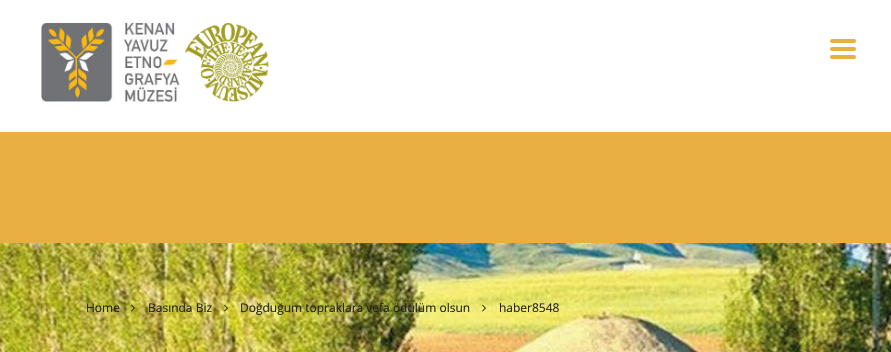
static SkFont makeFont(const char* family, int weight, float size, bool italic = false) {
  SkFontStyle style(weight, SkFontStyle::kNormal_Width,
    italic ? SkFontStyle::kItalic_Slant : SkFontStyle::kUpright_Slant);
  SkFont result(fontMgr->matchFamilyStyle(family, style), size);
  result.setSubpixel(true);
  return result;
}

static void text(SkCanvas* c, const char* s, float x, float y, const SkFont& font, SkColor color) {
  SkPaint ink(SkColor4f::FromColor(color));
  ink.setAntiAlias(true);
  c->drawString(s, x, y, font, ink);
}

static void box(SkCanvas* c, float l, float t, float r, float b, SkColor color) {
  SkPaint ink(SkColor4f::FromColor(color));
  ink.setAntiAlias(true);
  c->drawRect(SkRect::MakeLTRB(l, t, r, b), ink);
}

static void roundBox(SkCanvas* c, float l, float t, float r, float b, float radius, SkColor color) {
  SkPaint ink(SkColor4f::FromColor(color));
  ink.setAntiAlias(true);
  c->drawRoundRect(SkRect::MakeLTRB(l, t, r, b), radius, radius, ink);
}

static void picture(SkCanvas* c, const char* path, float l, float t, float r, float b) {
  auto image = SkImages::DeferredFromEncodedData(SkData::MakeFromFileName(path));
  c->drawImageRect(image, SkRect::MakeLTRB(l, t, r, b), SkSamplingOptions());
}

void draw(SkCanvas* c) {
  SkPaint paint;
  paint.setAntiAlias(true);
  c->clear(0xffffffff);
  picture(c, "img_01.png", 41, 22, 269, 102);
  roundBox(c, 830, 47, 856, 51, 2, 0xffe9af43);
  roundBox(c, 830, 39, 856, 43, 2, 0xffe9af43);
  roundBox(c, 830, 55, 856, 59, 2, 0xffe9af43);
  box(c, 0, 132, 891, 243, 0xffe9af43);
  picture(c, "img_02.png", 0, 243, 891, 352);
  SkFont face1 = makeFont("Open Sans", 400, 12);
  text(c, "Home", 86, 312, face1, 0xff222222);
  picture(c, "img_03.png", 131, 304, 135, 312);
  text(c, "Basında Biz", 148, 312, face1, 0xff222222);
  picture(c, "img_04.png", 224, 304, 228, 312);
  text(c, "Doğduğum topraklara vefa ödülüm olsun", 240, 312, face1, 0xff222222);
  picture(c, "img_05.png", 482, 304, 486, 312);
  text(c, "haber8548", 499, 312, face1, 0xff222222);
}
